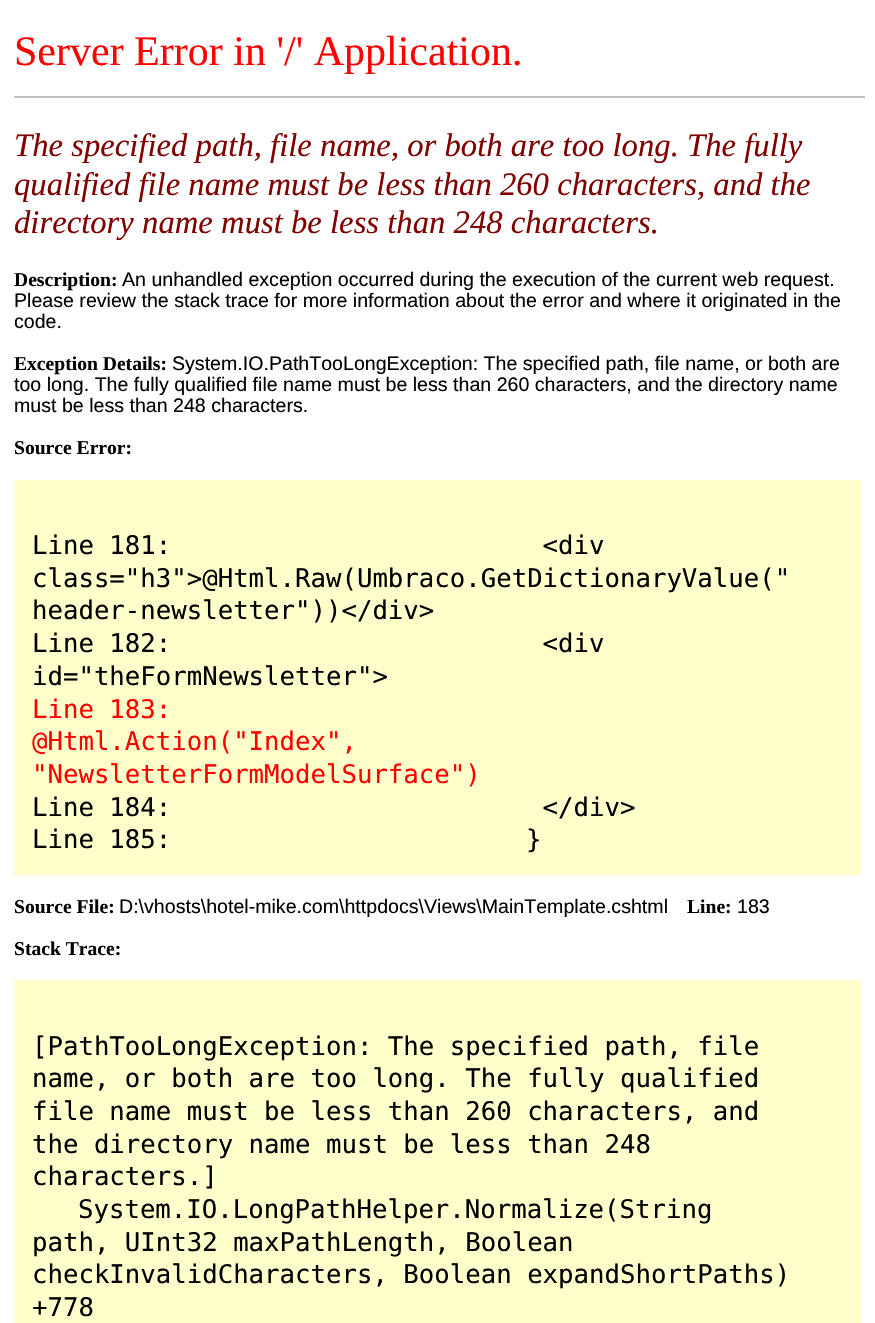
static SkFont makeFont(const char* family, int weight, float size, bool italic = false) {
  SkFontStyle style(weight, SkFontStyle::kNormal_Width,
    italic ? SkFontStyle::kItalic_Slant : SkFontStyle::kUpright_Slant);
  SkFont result(fontMgr->matchFamilyStyle(family, style), size);
  result.setSubpixel(true);
  return result;
}

static void text(SkCanvas* c, const char* s, float x, float y, const SkFont& font, SkColor color) {
  SkPaint ink(SkColor4f::FromColor(color));
  ink.setAntiAlias(true);
  c->drawString(s, x, y, font, ink);
}

static void box(SkCanvas* c, float l, float t, float r, float b, SkColor color) {
  SkPaint ink(SkColor4f::FromColor(color));
  ink.setAntiAlias(true);
  c->drawRect(SkRect::MakeLTRB(l, t, r, b), ink);
}

void draw(SkCanvas* c) {
  SkPaint paint;
  paint.setAntiAlias(true);
  c->clear(0xffffffff);
  SkFont face1 = makeFont("Liberation Serif", 400, 42);
  text(c, "Server Error in '/' Application.", 14, 65, face1, 0xffff0000);
  box(c, 14, 96, 865, 98, 0xffc0c0c0);
  SkFont face2 = makeFont("Liberation Serif", 400, 32.7f, true);
  text(c, "The specified path, file name, or both are too long. The fully", 14, 156, face2, 0xff800000);
  text(c, "qualified file name must be less than 260 characters, and the", 14, 195, face2, 0xff800000);
  text(c, "directory name must be less than 248 characters.", 14, 233, face2, 0xff800000);
  SkFont face3 = makeFont("Liberation Serif", 700, 19.6f);
  text(c, "Description:", 14, 286, face3, 0xff000000);
  SkFont face4 = makeFont("Liberation Sans", 400, 19.6f);
  text(c, "An unhandled exception occurred during the execution of the current web request.", 122, 286, face4, 0xff000000);
  text(c, "Please review the stack trace for more information about the error and where it originated in the", 14, 307, face4, 0xff000000);
  text(c, "code.", 14, 328, face4, 0xff000000);
  text(c, "Exception Details:", 14, 370, face3, 0xff000000);
  text(c, "System.IO.PathTooLongException: The specified path, file name, or both are", 172, 370, face4, 0xff000000);
  text(c, "too long. The fully qualified file name must be less than 260 characters, and the directory name", 14, 391, face4, 0xff000000);
  text(c, "must be less than 248 characters.", 14, 412, face4, 0xff000000);
  text(c, "Source Error:", 14, 454, face3, 0xff000000);
  box(c, 14, 480, 861, 875, 0xffffffcc);
  SkFont face5 = makeFont("DejaVu Sans Mono", 400, 25.7f);
  text(c, "Line 181:                        <div", 32, 554, face5, 0xff000000);
  text(c, "class=\"h3\">@Html.Raw(Umbraco.GetDictionaryValue(\"", 32, 587, face5, 0xff000000);
  text(c, "header-newsletter\"))</div>", 32, 619, face5, 0xff000000);
  text(c, "Line 182:                        <div", 32, 652, face5, 0xff000000);
  text(c, "id=\"theFormNewsletter\">", 32, 685, face5, 0xff000000);
  text(c, "Line 183:", 32, 718, face5, 0xffff0000);
  text(c, "@Html.Action(\"Index\",", 32, 750, face5, 0xffff0000);
  text(c, "\"NewsletterFormModelSurface\")", 32, 783, face5, 0xffff0000);
  text(c, "Line 184:                        </div>", 32, 816, face5, 0xff000000);
  text(c, "Line 185:", 32, 848, face5, 0xff000000);
  text(c, "}", 526, 848, face5, 0xff000000);
  text(c, "Source File:", 14, 913, face3, 0xff000000);
  text(c, "D:\\vhosts\\hotel-mike.com\\httpdocs\\Views\\MainTemplate.cshtml", 119, 913, face4, 0xff000000);
  text(c, "Line:", 687, 913, face3, 0xff000000);
  text(c, "183", 737, 913, face4, 0xff000000);
  text(c, "Stack Trace:", 14, 955, face3, 0xff000000);
  box(c, 14, 980, 861, 1323, 0xffffffcc);
  text(c, "[PathTooLongException: The specified path, file", 32, 1055, face5, 0xff000000);
  text(c, "name, or both are too long. The fully qualified", 32, 1087, face5, 0xff000000);
  text(c, "file name must be less than 260 characters, and", 32, 1120, face5, 0xff000000);
  text(c, "the directory name must be less than 248", 32, 1153, face5, 0xff000000);
  text(c, "characters.]", 32, 1185, face5, 0xff000000);
  text(c, "System.IO.LongPathHelper.Normalize(String", 78, 1218, face5, 0xff000000);
  text(c, "path, UInt32 maxPathLength, Boolean", 32, 1251, face5, 0xff000000);
  text(c, "checkInvalidCharacters, Boolean expandShortPaths)", 32, 1283, face5, 0xff000000);
  text(c, "+778", 32, 1316, face5, 0xff000000);
}
